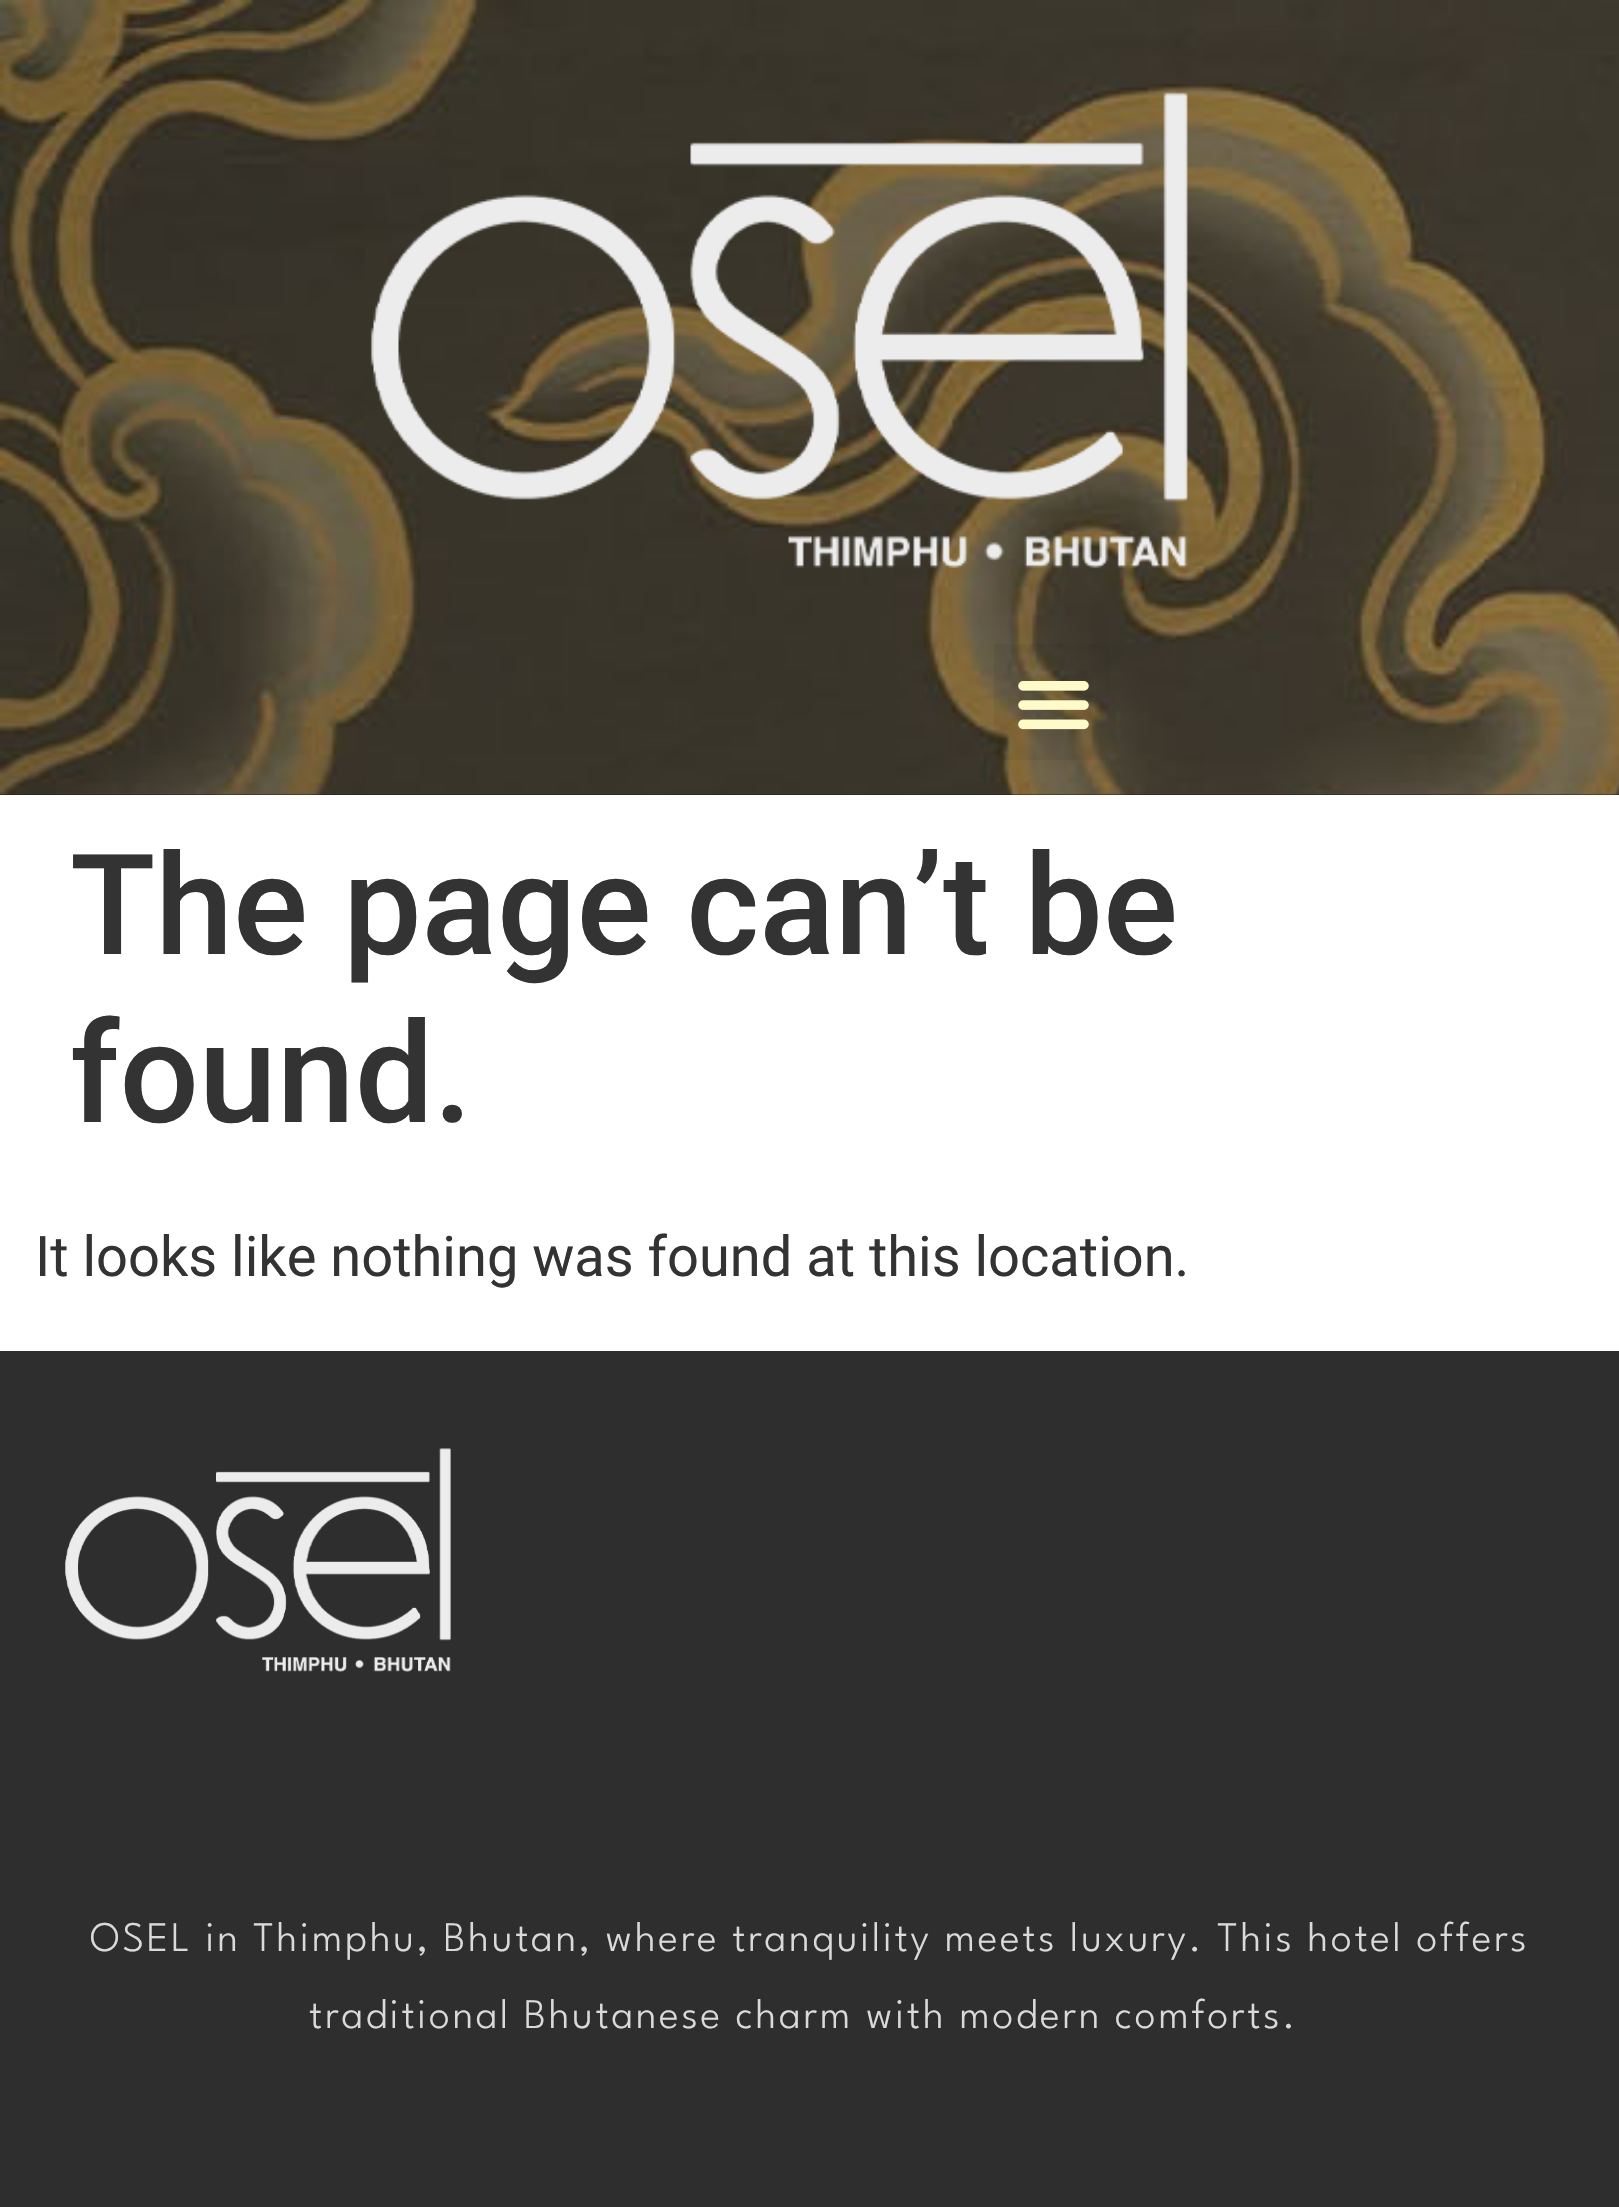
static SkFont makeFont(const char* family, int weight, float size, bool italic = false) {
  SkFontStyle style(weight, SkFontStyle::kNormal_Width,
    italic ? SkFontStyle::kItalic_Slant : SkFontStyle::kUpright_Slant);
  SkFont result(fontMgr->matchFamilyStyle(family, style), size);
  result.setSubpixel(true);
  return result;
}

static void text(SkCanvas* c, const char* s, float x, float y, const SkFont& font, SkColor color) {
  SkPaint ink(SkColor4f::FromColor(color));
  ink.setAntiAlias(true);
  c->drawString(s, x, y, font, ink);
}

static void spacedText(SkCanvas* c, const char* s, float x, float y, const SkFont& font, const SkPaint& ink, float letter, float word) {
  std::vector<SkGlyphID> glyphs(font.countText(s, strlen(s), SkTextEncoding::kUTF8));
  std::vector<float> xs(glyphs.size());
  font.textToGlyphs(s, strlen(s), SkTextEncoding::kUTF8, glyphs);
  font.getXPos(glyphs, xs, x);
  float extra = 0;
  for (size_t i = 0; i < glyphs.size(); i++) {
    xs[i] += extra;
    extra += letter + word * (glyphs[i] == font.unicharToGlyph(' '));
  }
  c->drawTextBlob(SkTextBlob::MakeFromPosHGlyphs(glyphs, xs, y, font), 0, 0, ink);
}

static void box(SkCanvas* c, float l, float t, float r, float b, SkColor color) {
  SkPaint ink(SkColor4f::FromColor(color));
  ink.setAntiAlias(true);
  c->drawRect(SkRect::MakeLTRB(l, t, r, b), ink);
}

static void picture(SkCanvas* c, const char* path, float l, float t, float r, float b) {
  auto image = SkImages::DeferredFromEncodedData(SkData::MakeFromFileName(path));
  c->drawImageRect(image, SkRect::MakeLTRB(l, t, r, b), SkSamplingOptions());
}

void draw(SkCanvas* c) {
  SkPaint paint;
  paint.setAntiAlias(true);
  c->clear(0xffffffff);
  box(c, 0, 794, 1619, 795, 0xff222222);
  picture(c, "img_01.png", 0, 0, 1619, 795);
  picture(c, "img_02.png", 370, 92, 1188, 569);
  box(c, 994, 644, 1110, 760, 0x0d000000);
  picture(c, "img_03.png", 1018, 681, 1089, 730);
  SkFont face1 = makeFont("Roboto", 500, 140);
  text(c, "The page can’t be", 70, 954, face1, 0xff333333);
  text(c, "found.", 70, 1122, face1, 0xff333333);
  SkFont face2 = makeFont("Roboto", 400, 56);
  text(c, "It looks like nothing was found at this location.", 35, 1276, face2, 0xff333333);
  box(c, 0, 1351, 1619, 2207, 0xff2e2e2e);
  picture(c, "img_04.png", 65, 1448, 451, 1672);
  SkFont face3 = makeFont("League Spartan", 300, 42);
  paint.setColor(0xffdadada);
  spacedText(c, "OSEL in Thimphu, Bhutan, where tranquility meets luxury. This hotel offers", 90, 1951, face3, paint, 2.65f, 0);
  spacedText(c, "traditional Bhutanese charm with modern comforts.", 309, 2028, face3, paint, 2.65f, 0);
}
